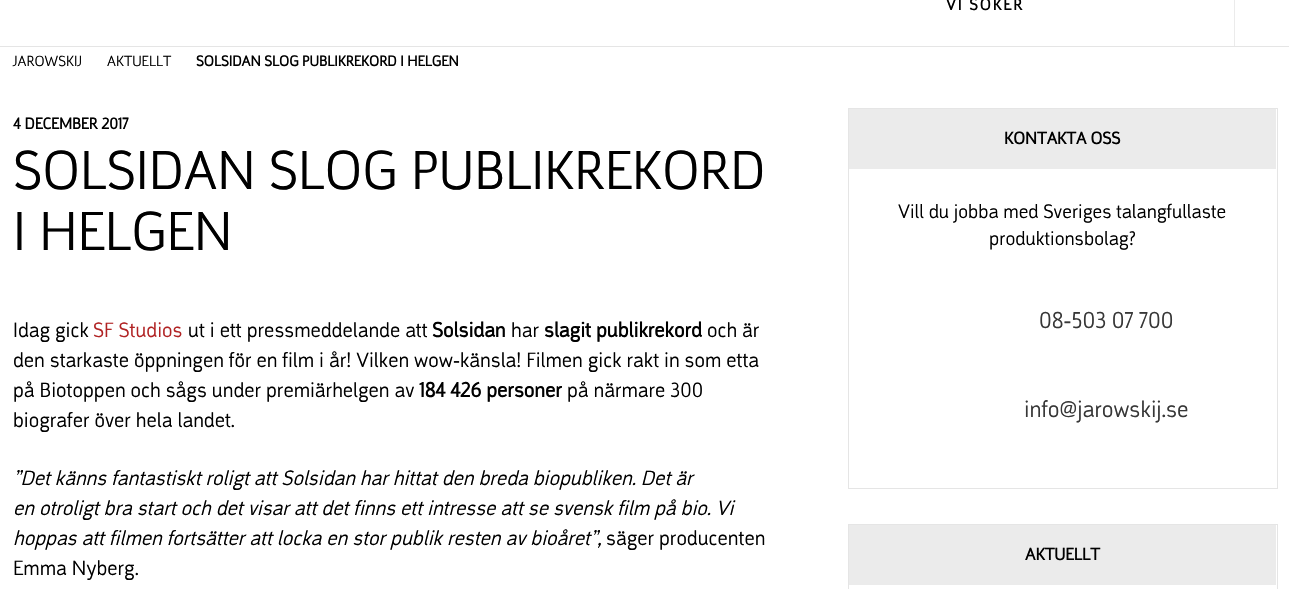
static SkFont makeFont(const char* family, int weight, float size, bool italic = false) {
  SkFontStyle style(weight, SkFontStyle::kNormal_Width,
    italic ? SkFontStyle::kItalic_Slant : SkFontStyle::kUpright_Slant);
  SkFont result(fontMgr->matchFamilyStyle(family, style), size);
  result.setSubpixel(true);
  return result;
}

static void text(SkCanvas* c, const char* s, float x, float y, const SkFont& font, SkColor color) {
  SkPaint ink(SkColor4f::FromColor(color));
  ink.setAntiAlias(true);
  c->drawString(s, x, y, font, ink);
}

static void spacedText(SkCanvas* c, const char* s, float x, float y, const SkFont& font, const SkPaint& ink, float letter, float word) {
  std::vector<SkGlyphID> glyphs(font.countText(s, strlen(s), SkTextEncoding::kUTF8));
  std::vector<float> xs(glyphs.size());
  font.textToGlyphs(s, strlen(s), SkTextEncoding::kUTF8, glyphs);
  font.getXPos(glyphs, xs, x);
  float extra = 0;
  for (size_t i = 0; i < glyphs.size(); i++) {
    xs[i] += extra;
    extra += letter + word * (glyphs[i] == font.unicharToGlyph(' '));
  }
  c->drawTextBlob(SkTextBlob::MakeFromPosHGlyphs(glyphs, xs, y, font), 0, 0, ink);
}

static void box(SkCanvas* c, float l, float t, float r, float b, SkColor color) {
  SkPaint ink(SkColor4f::FromColor(color));
  ink.setAntiAlias(true);
  c->drawRect(SkRect::MakeLTRB(l, t, r, b), ink);
}

void draw(SkCanvas* c) {
  SkPaint paint;
  paint.setAntiAlias(true);
  c->clear(0xffffffff);
  box(c, 0, 46, 1289, 47, 0xffe5e5e5);
  SkFont face1 = makeFont("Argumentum", 700, 16.25f);
  paint.setColor(0xff000000);
  spacedText(c, "VI SÖKER", 946, 10, face1, paint, 2, 0);
  box(c, 1234, 0, 1235, 46, 0xffebebeb);
  SkFont face2 = makeFont("Argumentum", 300, 15);
  text(c, "JAROWSKIJ", 13, 66, face2, 0xff000000);
  text(c, "AKTUELLT", 107, 66, face2, 0xff000000);
  SkFont face3 = makeFont("Argumentum", 700, 15);
  text(c, "SOLSIDAN SLOG PUBLIKREKORD I HELGEN", 196, 66, face3, 0xff000000);
  text(c, "4 DECEMBER 2017", 13, 129, face1, 0xff000000);
  SkFont face4 = makeFont("Argumentum", 300, 56.25f);
  text(c, "SOLSIDAN SLOG PUBLIKREKORD", 13, 189, face4, 0xff000000);
  text(c, "I HELGEN", 13, 250, face4, 0xff000000);
  SkFont face5 = makeFont("Argumentum", 300, 21.25f);
  text(c, "Idag gick", 13, 337, face5, 0xff000000);
  text(c, "SF Studios", 93, 337, face5, 0xffb12324);
  text(c, "ut i ett pressmeddelande att", 188, 337, face5, 0xff000000);
  SkFont face6 = makeFont("Argumentum", 700, 21.25f);
  text(c, "Solsidan", 432, 337, face6, 0xff000000);
  text(c, "har", 511, 337, face5, 0xff000000);
  text(c, "slagit publikrekord", 544, 337, face6, 0xff000000);
  text(c, "och är", 707, 337, face5, 0xff000000);
  text(c, "den starkaste öppningen för en film i år! Vilken wow-känsla! Filmen gick rakt in som etta", 13, 367, face5, 0xff000000);
  text(c, "på Biotoppen och sågs under premiärhelgen av", 13, 397, face5, 0xff000000);
  text(c, "184 426 personer", 419, 397, face6, 0xff000000);
  text(c, "på närmare 300", 567, 397, face5, 0xff000000);
  text(c, "biografer över hela landet.", 13, 427, face5, 0xff000000);
  SkFont face7 = makeFont("Argumentum", 300, 21.25f, true);
  text(c, "”Det känns fantastiskt roligt att Solsidan har hittat den breda biopubliken. Det är", 13, 485, face7, 0xff000000);
  text(c, "en otroligt bra start och det visar att det finns ett intresse att se svensk film på bio. Vi", 13, 515, face7, 0xff000000);
  text(c, "hoppas att filmen fortsätter att locka en stor publik resten av bioåret”,", 13, 545, face7, 0xff000000);
  text(c, "säger producenten", 606, 545, face5, 0xff000000);
  text(c, "Emma Nyberg.", 13, 575, face5, 0xff000000);
  paint.setStyle(SkPaint::kStroke_Style);
  paint.setStrokeWidth(1);
  paint.setColor(0xffe5e5e5);
  c->drawRect(SkRect::MakeLTRB(848.5f, 108.5f, 1277.5f, 488.5f), paint);
  box(c, 849, 109, 1276, 169, 0xffebebeb);
  SkFont face8 = makeFont("Argumentum", 700, 17.5f);
  text(c, "KONTAKTA OSS", 1004, 144, face8, 0xff000000);
  SkFont face9 = makeFont("Argumentum", 300, 20);
  text(c, "Vill du jobba med Sveriges talangfullaste", 898, 218, face9, 0xff000000);
  text(c, "produktionsbolag?", 989, 245, face9, 0xff000000);
  SkFont face10 = makeFont("Argumentum", 300, 23.75f);
  text(c, "08-503 07 700", 1039, 328, face10, 0xff373737);
  text(c, "info@jarowskij.se", 1024, 417, face10, 0xff373737);
  c->drawRect(SkRect::MakeLTRB(848.5f, 524.5f, 1277.5f, 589.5f), paint);
  box(c, 849, 525, 1276, 585, 0xffebebeb);
  text(c, "AKTUELLT", 1025, 560, face8, 0xff000000);
}
